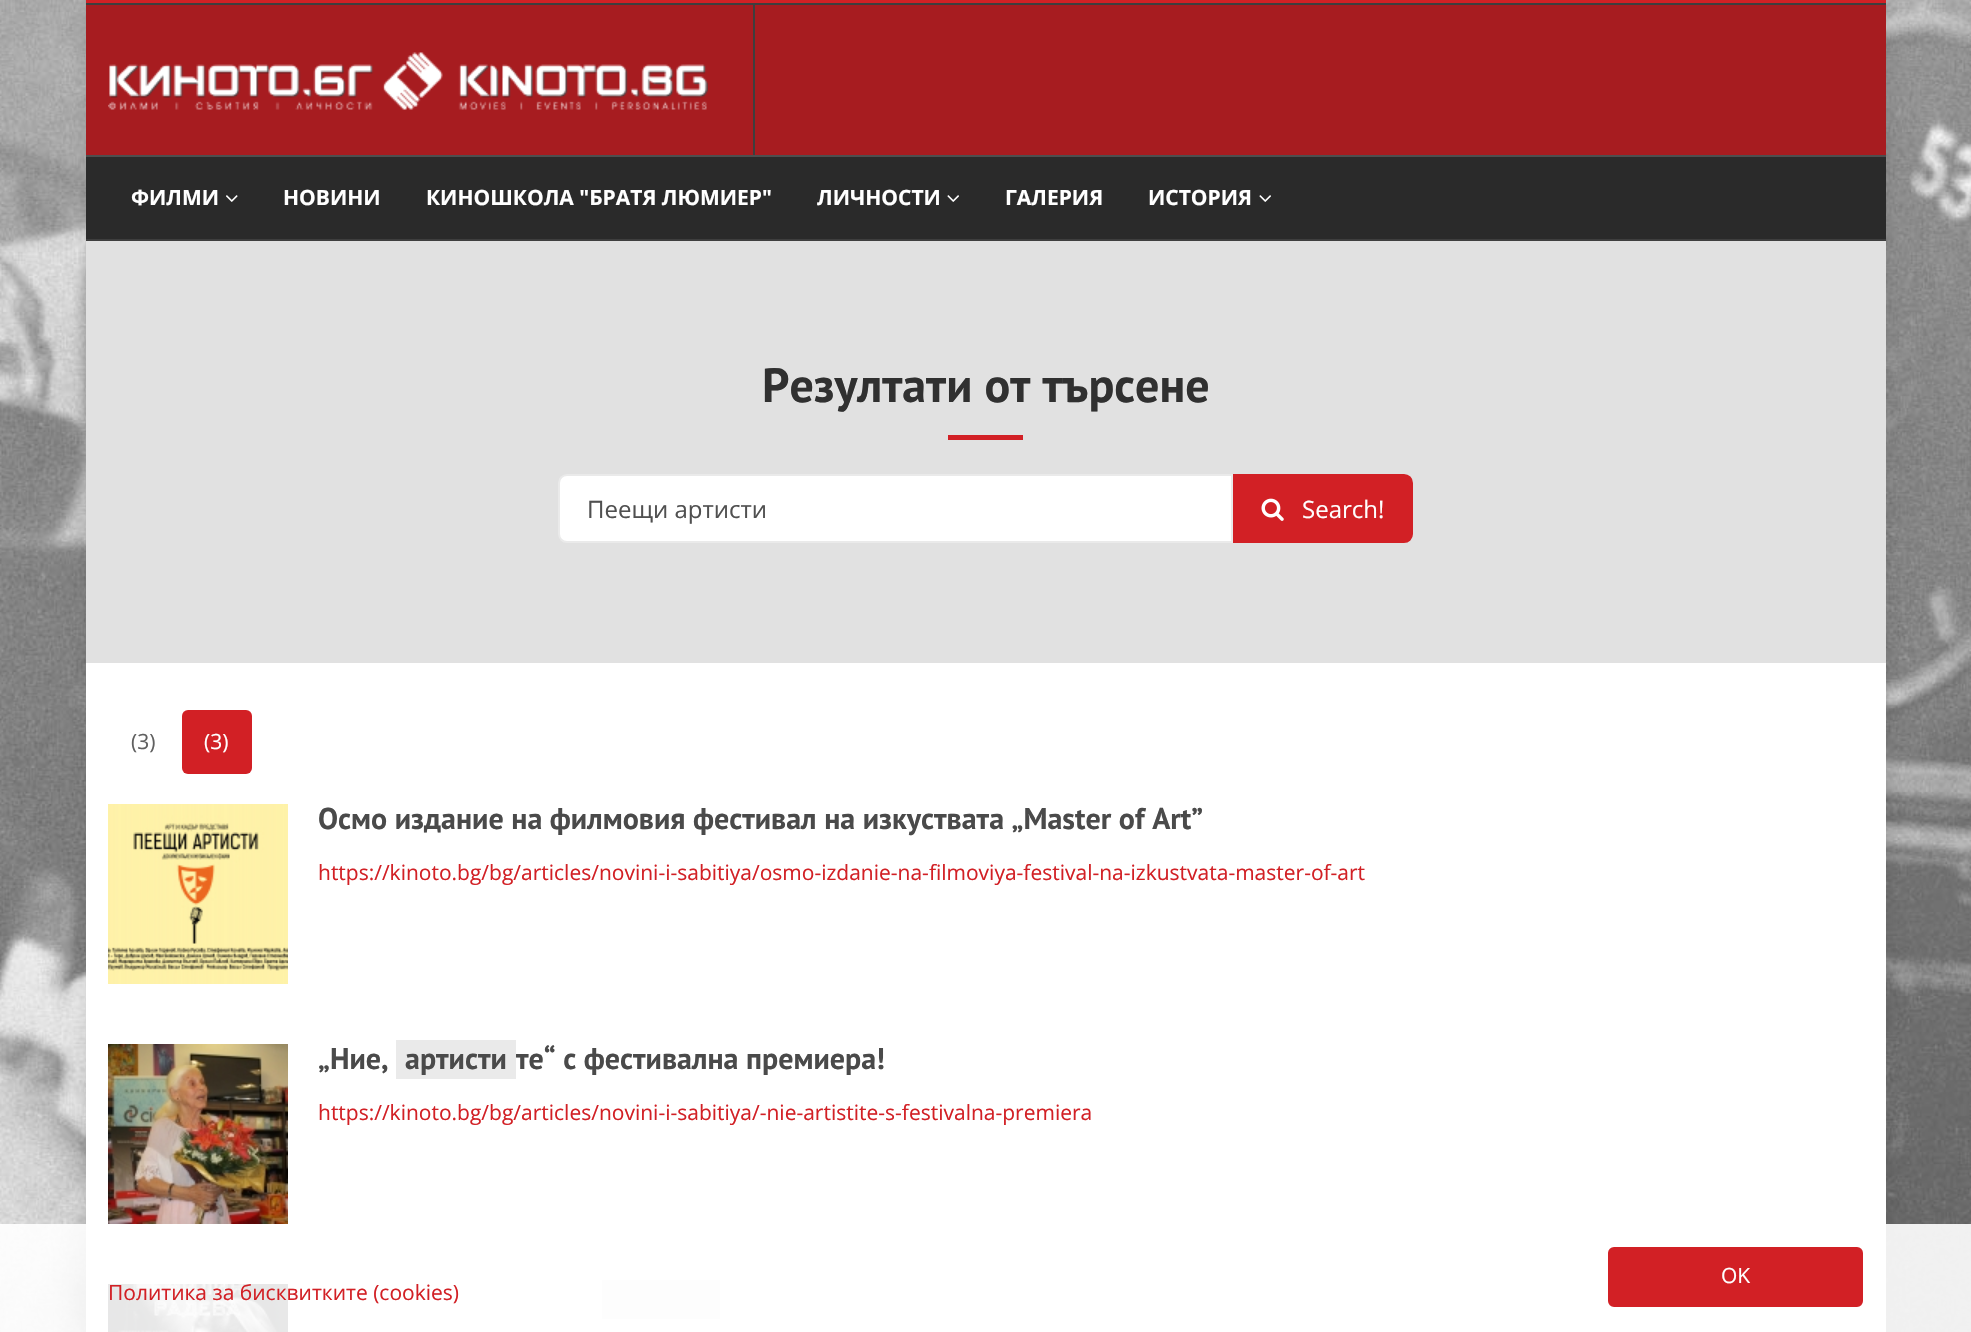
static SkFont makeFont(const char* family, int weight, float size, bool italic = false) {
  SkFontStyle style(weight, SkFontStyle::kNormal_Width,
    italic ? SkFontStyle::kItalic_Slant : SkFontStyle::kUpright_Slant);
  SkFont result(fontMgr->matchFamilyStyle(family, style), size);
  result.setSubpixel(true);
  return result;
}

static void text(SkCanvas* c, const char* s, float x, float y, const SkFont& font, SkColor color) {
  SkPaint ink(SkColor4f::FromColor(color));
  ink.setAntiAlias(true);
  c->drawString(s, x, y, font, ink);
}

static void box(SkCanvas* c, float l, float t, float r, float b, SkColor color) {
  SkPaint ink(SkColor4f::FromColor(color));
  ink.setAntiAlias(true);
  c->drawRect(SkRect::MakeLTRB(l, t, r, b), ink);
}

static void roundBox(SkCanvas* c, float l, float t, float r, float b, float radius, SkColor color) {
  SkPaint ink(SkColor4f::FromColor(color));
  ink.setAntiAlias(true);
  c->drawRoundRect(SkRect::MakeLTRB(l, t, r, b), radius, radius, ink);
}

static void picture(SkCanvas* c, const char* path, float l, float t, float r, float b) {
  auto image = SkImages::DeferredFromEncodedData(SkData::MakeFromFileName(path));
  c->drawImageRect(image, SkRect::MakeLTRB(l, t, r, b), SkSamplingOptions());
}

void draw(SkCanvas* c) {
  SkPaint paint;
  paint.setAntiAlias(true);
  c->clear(0xffffffff);
  picture(c, "img_01.png", 0, 0, 1971, 1332);
  paint.setColor(0x1a000000);
  paint.setMaskFilter(SkMaskFilter::MakeBlur(kNormal_SkBlurStyle, 11));
  c->drawRect(SkRect::MakeLTRB(86, 0, 1886, 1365), paint);
  paint.setMaskFilter(nullptr);
  box(c, 86, 663, 1886, 1332, 0xffffffff);
  box(c, 86, 0, 1886, 3, 0xffd22025);
  box(c, 86, 5, 1886, 155, 0xffa71c20);
  box(c, 86, 239, 1886, 241, 0xff3e3e3e);
  box(c, 86, 3, 1886, 5, 0xff3e3e3e);
  box(c, 753, 5, 755, 155, 0xff3e3e3e);
  picture(c, "img_02.png", 108, 52, 708, 110);
  box(c, 86, 157, 1886, 239, 0xff2a2a2a);
  box(c, 86, 155, 1886, 157, 0xff4e4e4e);
  SkFont face1 = makeFont("Open Sans", 700, 21);
  text(c, "ФИЛМИ", 131, 205, face1, 0xffffffff);
  picture(c, "img_03.png", 226, 195, 238, 202);
  text(c, "НОВИНИ", 283, 205, face1, 0xffffffff);
  text(c, "КИНОШКОЛА \"БРАТЯ ЛЮМИЕР\"", 426, 205, face1, 0xffffffff);
  text(c, "ЛИЧНОСТИ", 817, 205, face1, 0xffffffff);
  picture(c, "img_04.png", 947, 195, 959, 202);
  text(c, "ГАЛЕРИЯ", 1005, 205, face1, 0xffffffff);
  text(c, "ИСТОРИЯ", 1148, 205, face1, 0xffffffff);
  picture(c, "img_04.png", 1259, 195, 1271, 202);
  box(c, 86, 241, 1886, 663, 0xffe1e1e1);
  SkFont face2 = makeFont("PT Sans", 700, 48);
  text(c, "Резултати от търсене", 762, 402, face2, 0xff303030);
  box(c, 948, 435, 1023, 440, 0xffd22025);
  paint.setColor(0xffffffff);
  c->drawPath(SkPathBuilder().moveTo(567, 475).lineTo(1232, 475).lineTo(1232, 542).lineTo(567, 542).cubicTo(562.5f, 542, 559, 538.5f, 559, 534).lineTo(559, 483).cubicTo(559, 478.5f, 562.5f, 475, 567, 475).close().detach(), paint);
  paint.setStyle(SkPaint::kStroke_Style);
  paint.setStrokeWidth(2);
  paint.setColor(0xffeaeaea);
  c->drawPath(SkPathBuilder().moveTo(567, 475).lineTo(1232, 475).lineTo(1232, 542).lineTo(567, 542).cubicTo(562.5f, 542, 559, 538.5f, 559, 534).lineTo(559, 483).cubicTo(559, 478.5f, 562.5f, 475, 567, 475).close().detach(), paint);
  SkFont face3 = makeFont("Open Sans", 400, 24);
  text(c, "Пеещи артисти", 587, 518, face3, 0xff505050);
  paint.setStyle(SkPaint::kFill_Style);
  paint.setColor(0xffd22025);
  c->drawPath(SkPathBuilder().moveTo(1234, 475).lineTo(1404, 475).cubicTo(1408.5f, 475, 1412, 478.5f, 1412, 483).lineTo(1412, 534).cubicTo(1412, 538.5f, 1408.5f, 542, 1404, 542).lineTo(1234, 542).close().detach(), paint);
  paint.setStyle(SkPaint::kStroke_Style);
  c->drawPath(SkPathBuilder().moveTo(1234, 475).lineTo(1404, 475).cubicTo(1408.5f, 475, 1412, 478.5f, 1412, 483).lineTo(1412, 534).cubicTo(1412, 538.5f, 1408.5f, 542, 1404, 542).lineTo(1234, 542).close().detach(), paint);
  picture(c, "img_05.png", 1261, 498, 1284, 521);
  text(c, "Search!", 1302, 518, face3, 0xffffffff);
  SkFont face4 = makeFont("Open Sans", 400, 21);
  text(c, "(3)", 131, 749, face4, 0xff606060);
  roundBox(c, 182, 710, 252, 774, 6, 0xffd22025);
  text(c, "(3)", 204, 749, face4, 0xffffffff);
  picture(c, "img_06.png", 108, 804, 288, 984);
  SkFont face5 = makeFont("PT Sans", 700, 30);
  text(c, "Осмо издание на филмовия фестивал на изкуствата „Master оf Art”", 318, 829, face5, 0xff4a4a4a);
  text(c, "https://kinoto.bg/bg/articles/novini-i-sabitiya/osmo-izdanie-na-filmoviya-festival-na-izkustvata-master-of-art", 318, 880, face4, 0xffd22025);
  picture(c, "img_07.png", 108, 1044, 288, 1224);
  text(c, "„Ние,", 318, 1069, face5, 0xff4a4a4a);
  box(c, 396, 1040, 516, 1079, 0xffeaeaea);
  text(c, "артисти", 405, 1069, face5, 0xff4a4a4a);
  text(c, "те“ с фестивална премиера!", 516, 1069, face5, 0xff4a4a4a);
  text(c, "https://kinoto.bg/bg/articles/novini-i-sabitiya/-nie-artistite-s-festivalna-premiera", 318, 1120, face4, 0xffd22025);
  picture(c, "img_08.png", 108, 1284, 288, 1332);
  box(c, 602, 1280, 720, 1319, 0xffeaeaea);
  box(c, 0, 1224, 1971, 1332, 0xe6ffffff);
  paint.setStyle(SkPaint::kFill_Style);
  c->drawRoundRect(SkRect::MakeLTRB(1609, 1248, 1862, 1306), 5, 5, paint);
  paint.setStyle(SkPaint::kStroke_Style);
  c->drawRoundRect(SkRect::MakeLTRB(1609, 1248, 1862, 1306), 5, 5, paint);
  text(c, "OK", 1721, 1283, face4, 0xffffffff);
  text(c, "Политика за бисквитките (cookies)", 108, 1300, face4, 0xffd22025);
}
